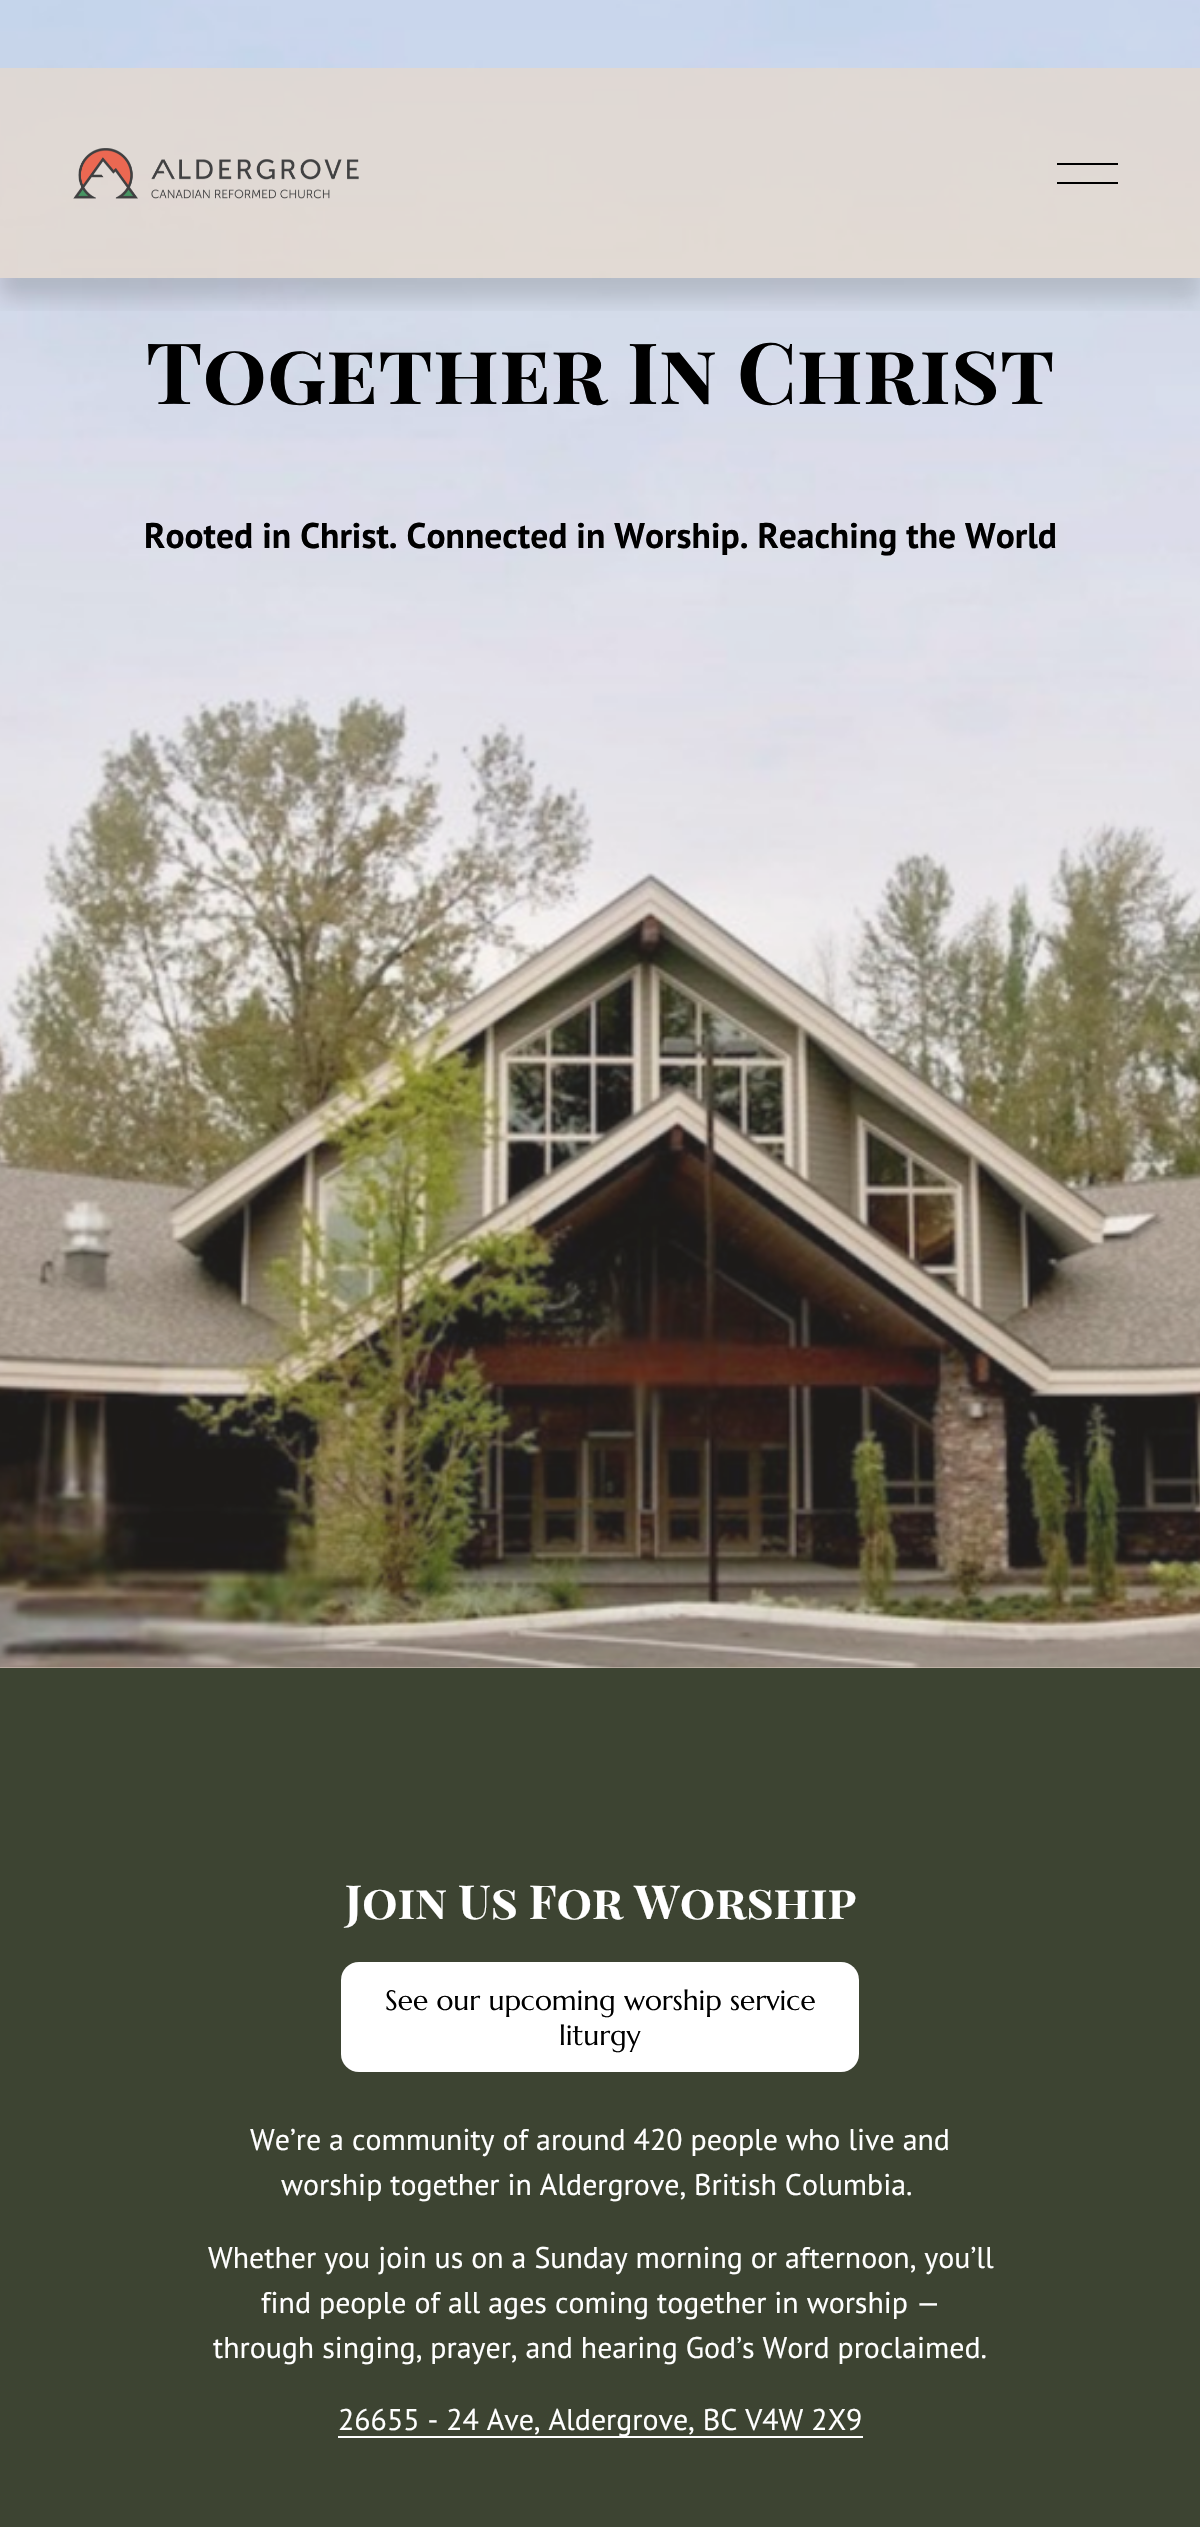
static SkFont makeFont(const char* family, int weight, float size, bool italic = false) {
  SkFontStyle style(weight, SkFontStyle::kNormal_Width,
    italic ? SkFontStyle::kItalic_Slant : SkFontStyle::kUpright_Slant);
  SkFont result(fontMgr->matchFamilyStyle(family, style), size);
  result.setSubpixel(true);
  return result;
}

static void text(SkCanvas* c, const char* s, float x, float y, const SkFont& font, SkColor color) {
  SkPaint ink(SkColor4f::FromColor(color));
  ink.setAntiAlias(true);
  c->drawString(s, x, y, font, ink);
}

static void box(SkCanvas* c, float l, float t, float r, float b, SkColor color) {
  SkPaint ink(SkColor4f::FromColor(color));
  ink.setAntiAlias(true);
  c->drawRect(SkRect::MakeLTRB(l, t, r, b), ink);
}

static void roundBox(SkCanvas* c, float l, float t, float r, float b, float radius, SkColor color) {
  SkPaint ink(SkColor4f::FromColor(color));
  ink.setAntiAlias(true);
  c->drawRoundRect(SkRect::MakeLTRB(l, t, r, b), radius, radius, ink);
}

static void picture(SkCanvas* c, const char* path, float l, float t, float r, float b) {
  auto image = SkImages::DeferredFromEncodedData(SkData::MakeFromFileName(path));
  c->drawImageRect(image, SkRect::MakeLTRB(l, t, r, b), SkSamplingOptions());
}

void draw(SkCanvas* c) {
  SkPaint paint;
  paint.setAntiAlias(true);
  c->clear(0xffe7d9cb);
  picture(c, "img_02.png", 0, 0, 1200, 1668);
  c->save();
  c->clipRect(SkRect::MakeLTRB(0, 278, 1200, 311));
  paint.setColor(0x26000000);
  paint.setMaskFilter(SkMaskFilter::MakeBlur(kNormal_SkBlurStyle, 10.5f));
  c->drawRect(SkRect::MakeLTRB(0, 89, 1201, 299), paint);
  paint.setMaskFilter(nullptr);
  c->restore();
  box(c, 0, 68, 1200, 278, 0xbae7d9cb);
  picture(c, "img_01.png", 73, 148, 359, 199);
  box(c, 1057, 163, 1118, 165, 0xff000000);
  box(c, 1057, 182, 1118, 184, 0xff000000);
  SkFont face1 = makeFont("Playfair Display SC", 700, 84.75f);
  text(c, "Together In Christ", 146, 404, face1, 0xff000000);
  SkFont face2 = makeFont("PT Sans", 700, 35.55f);
  text(c, "Rooted in Christ. Connected in Worship. Reaching the World", 144, 548, face2, 0xff000000);
  box(c, 0, 1668, 1200, 2527, 0xff3d4432);
  SkFont face3 = makeFont("Playfair Display SC", 700, 46.9f);
  text(c, "Join Us For Worship", 345, 1919, face3, 0xffffffff);
  roundBox(c, 341, 1962, 859, 2072, 18, 0xffffffff);
  SkFont face4 = makeFont("Marcellus", 400, 28);
  text(c, "See our upcoming worship service", 385, 2010, face4, 0xff000000);
  text(c, "liturgy", 559, 2045, face4, 0xff000000);
  SkFont face5 = makeFont("PT Sans", 400, 29.9f);
  text(c, "We’re a community of around 420 people who live and", 250, 2150, face5, 0xffffffff);
  text(c, "worship together in Aldergrove, British Columbia.", 281, 2195, face5, 0xffffffff);
  text(c, "Whether you join us on a Sunday morning or afternoon, you’ll", 208, 2268, face5, 0xffffffff);
  text(c, "find people of all ages coming together in worship —", 261, 2313, face5, 0xffffffff);
  text(c, "through singing, prayer, and hearing God’s Word proclaimed.", 213, 2358, face5, 0xffffffff);
  box(c, 338, 2436, 863, 2438, 0xffffffff);
  text(c, "26655 - 24 Ave, Aldergrove, BC V4W 2X9", 338, 2430, face5, 0xffffffff);
}
